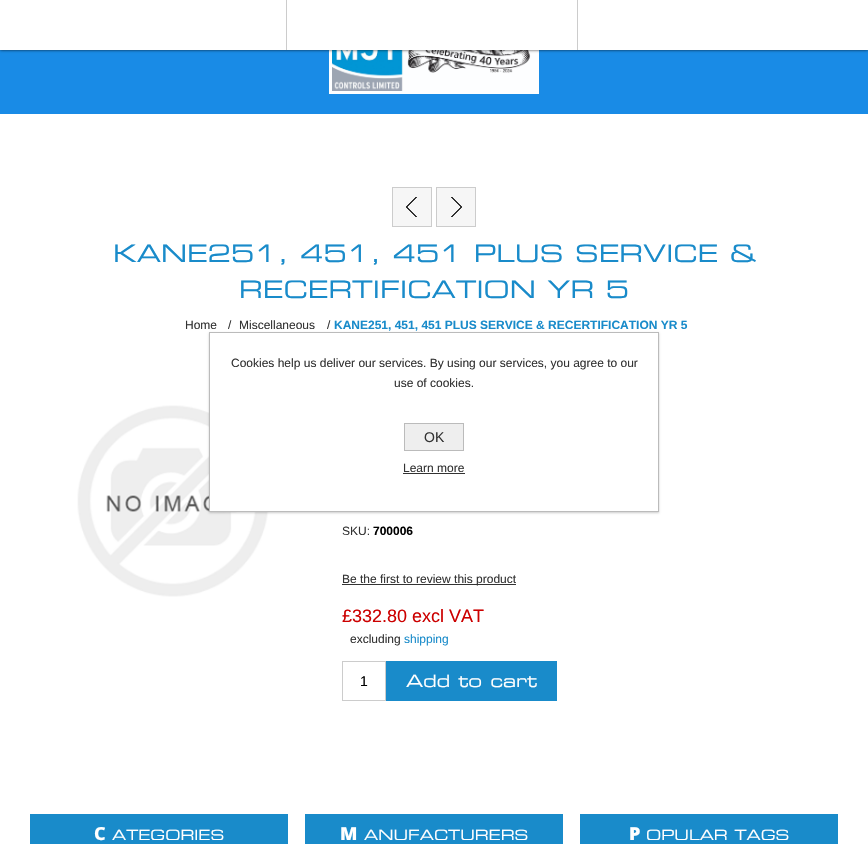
static SkFont makeFont(const char* family, int weight, float size, bool italic = false) {
  SkFontStyle style(weight, SkFontStyle::kNormal_Width,
    italic ? SkFontStyle::kItalic_Slant : SkFontStyle::kUpright_Slant);
  SkFont result(fontMgr->matchFamilyStyle(family, style), size);
  result.setSubpixel(true);
  return result;
}

static void text(SkCanvas* c, const char* s, float x, float y, const SkFont& font, SkColor color) {
  SkPaint ink(SkColor4f::FromColor(color));
  ink.setAntiAlias(true);
  c->drawString(s, x, y, font, ink);
}

static void box(SkCanvas* c, float l, float t, float r, float b, SkColor color) {
  SkPaint ink(SkColor4f::FromColor(color));
  ink.setAntiAlias(true);
  c->drawRect(SkRect::MakeLTRB(l, t, r, b), ink);
}

static void picture(SkCanvas* c, const char* path, float l, float t, float r, float b) {
  auto image = SkImages::DeferredFromEncodedData(SkData::MakeFromFileName(path));
  c->drawImageRect(image, SkRect::MakeLTRB(l, t, r, b), SkSamplingOptions());
}

void draw(SkCanvas* c) {
  SkPaint paint;
  paint.setAntiAlias(true);
  c->clear(0xffffffff);
  box(c, 0, 50, 868, 114, 0xff198be6);
  paint.setStyle(SkPaint::kStroke_Style);
  paint.setStrokeWidth(3);
  paint.setColor(0xfffdfeff);
  c->drawRect(SkRect::MakeLTRB(330.5f, 21.5f, 537.5f, 92.5f), paint);
  picture(c, "img_01.png", 332, 50, 536, 91);
  paint.setStyle(SkPaint::kFill_Style);
  paint.setColor(0xbf000000);
  paint.setMaskFilter(SkMaskFilter::MakeBlur(kNormal_SkBlurStyle, 1.5f));
  c->drawRect(SkRect::MakeLTRB(0, 0, 868, 50), paint);
  paint.setMaskFilter(nullptr);
  box(c, 0, 0, 868, 50, 0xffffffff);
  box(c, 286, 0, 287, 50, 0xffcccccc);
  box(c, 577, 0, 578, 50, 0xffcccccc);
  box(c, 393, 188, 431, 226, 0xfff6f6f6);
  picture(c, "img_02.png", 406, 197, 417, 217);
  paint.setStyle(SkPaint::kStroke_Style);
  paint.setStrokeWidth(1);
  paint.setColor(0xffcccccc);
  c->drawRect(SkRect::MakeLTRB(392.5f, 187.5f, 431.5f, 226.5f), paint);
  box(c, 437, 188, 475, 226, 0xfff6f6f6);
  picture(c, "img_03.png", 451, 197, 462, 217);
  c->drawRect(SkRect::MakeLTRB(436.5f, 187.5f, 475.5f, 226.5f), paint);
  SkFont face1 = makeFont("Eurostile", 400, 24);
  text(c, "KANE251, 451, 451 PLUS SERVICE &", 113, 262, face1, 0xff198bca);
  text(c, "RECERTIFICATION YR 5", 239, 298, face1, 0xff198bca);
  SkFont face2 = makeFont("Liberation Sans", 400, 12);
  text(c, "Home", 185, 329, face2, 0xff333333);
  text(c, "/", 228, 329, face2, 0xff333333);
  text(c, "Miscellaneous", 239, 329, face2, 0xff333333);
  text(c, "/", 327, 329, face2, 0xff333333);
  SkFont face3 = makeFont("Liberation Sans", 700, 12);
  text(c, "KANE251, 451, 451 PLUS SERVICE & RECERTIFICATION YR 5", 334, 329, face3, 0xff198bca);
  picture(c, "img_04.png", 77, 405, 269, 597);
  text(c, "SKU:", 342, 535, face2, 0xff333333);
  text(c, "700006", 373, 535, face3, 0xff000000);
  box(c, 342, 584, 516, 585, 0xff333333);
  text(c, "Be the first to review this product", 342, 583, face2, 0xff333333);
  SkFont face4 = makeFont("Liberation Sans", 400, 18);
  text(c, "£332.80 excl VAT", 342, 622, face4, 0xffcc0000);
  text(c, "excluding", 350, 643, face2, 0xff333333);
  text(c, "shipping", 404, 643, face2, 0xff198bca);
  c->drawRect(SkRect::MakeLTRB(342.5f, 661.5f, 385.5f, 700.5f), paint);
  SkFont face5 = makeFont("Liberation Sans", 400, 14);
  text(c, "1", 360, 686, face5, 0xff000000);
  box(c, 386, 661, 557, 701, 0xff198bca);
  SkFont face6 = makeFont("Eurostile", 400, 17);
  text(c, "Add to cart", 406, 687, face6, 0xffffffff);
  box(c, 30, 814, 288, 844, 0xff198bca);
  SkFont face7 = makeFont("Noto Sans", 800, 18);
  text(c, "C", 94, 840, face7, 0xffffffff);
  SkFont face8 = makeFont("Eurostile", 400, 14);
  text(c, "ATEGORIES", 112, 840, face8, 0xffffffff);
  box(c, 305, 814, 563, 844, 0xff198bca);
  SkFont face9 = makeFont("Noto Sans", 900, 18);
  text(c, "M", 340, 840, face9, 0xffffffff);
  text(c, "ANUFACTURERS", 364, 840, face8, 0xffffffff);
  box(c, 580, 814, 838, 844, 0xff198bca);
  text(c, "P", 629, 840, face9, 0xffffffff);
  text(c, "OPULAR TAGS", 646, 840, face8, 0xffffffff);
  paint.setStyle(SkPaint::kFill_Style);
  paint.setColor(0x33000000);
  paint.setMaskFilter(SkMaskFilter::MakeBlur(kNormal_SkBlurStyle, 1));
  c->drawRect(SkRect::MakeLTRB(209, 333, 659, 513), paint);
  paint.setMaskFilter(nullptr);
  paint.setColor(0xffffffff);
  c->drawRect(SkRect::MakeLTRB(209.5f, 332.5f, 658.5f, 511.5f), paint);
  paint.setStyle(SkPaint::kStroke_Style);
  paint.setColor(0xffbbbbbb);
  c->drawRect(SkRect::MakeLTRB(209.5f, 332.5f, 658.5f, 511.5f), paint);
  text(c, "Cookies help us deliver our services. By using our services, you agree to our", 231, 367, face2, 0xff333333);
  text(c, "use of cookies.", 394, 387, face2, 0xff333333);
  paint.setStyle(SkPaint::kFill_Style);
  paint.setColor(0xffeeeeee);
  c->drawRect(SkRect::MakeLTRB(404.5f, 423.5f, 463.5f, 450.5f), paint);
  paint.setStyle(SkPaint::kStroke_Style);
  paint.setColor(0xffbbbbbb);
  c->drawRect(SkRect::MakeLTRB(404.5f, 423.5f, 463.5f, 450.5f), paint);
  text(c, "OK", 424, 442, face5, 0xff333333);
  text(c, "Learn more", 403, 472, face2, 0xff333333);
  box(c, 403, 473, 465, 474, 0xff333333);
}
